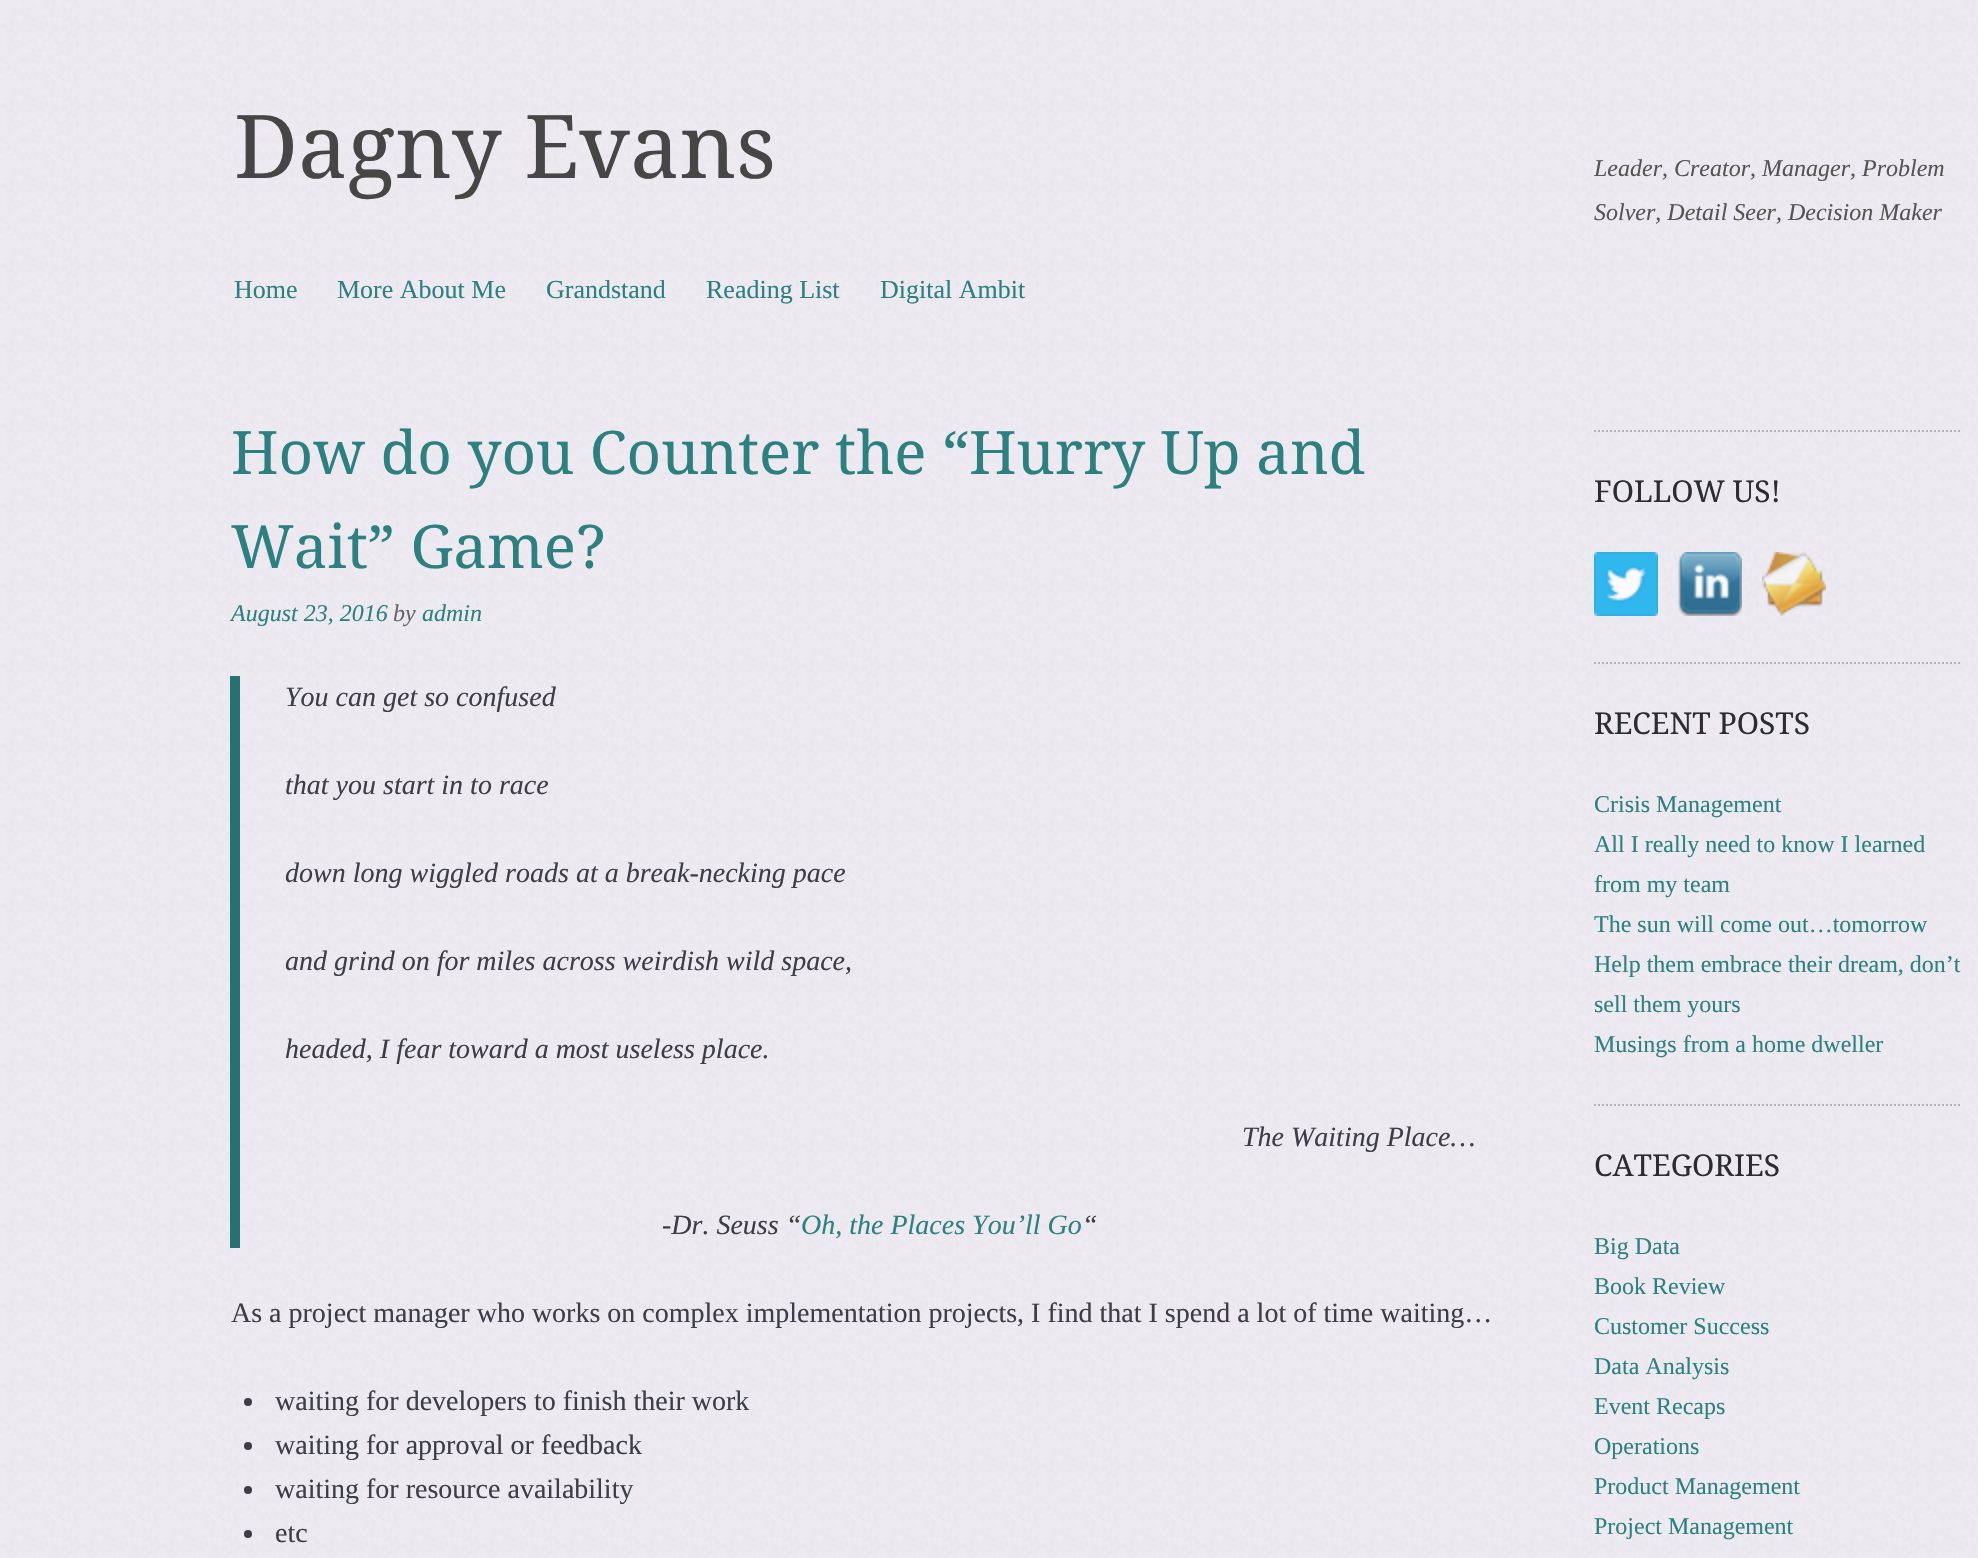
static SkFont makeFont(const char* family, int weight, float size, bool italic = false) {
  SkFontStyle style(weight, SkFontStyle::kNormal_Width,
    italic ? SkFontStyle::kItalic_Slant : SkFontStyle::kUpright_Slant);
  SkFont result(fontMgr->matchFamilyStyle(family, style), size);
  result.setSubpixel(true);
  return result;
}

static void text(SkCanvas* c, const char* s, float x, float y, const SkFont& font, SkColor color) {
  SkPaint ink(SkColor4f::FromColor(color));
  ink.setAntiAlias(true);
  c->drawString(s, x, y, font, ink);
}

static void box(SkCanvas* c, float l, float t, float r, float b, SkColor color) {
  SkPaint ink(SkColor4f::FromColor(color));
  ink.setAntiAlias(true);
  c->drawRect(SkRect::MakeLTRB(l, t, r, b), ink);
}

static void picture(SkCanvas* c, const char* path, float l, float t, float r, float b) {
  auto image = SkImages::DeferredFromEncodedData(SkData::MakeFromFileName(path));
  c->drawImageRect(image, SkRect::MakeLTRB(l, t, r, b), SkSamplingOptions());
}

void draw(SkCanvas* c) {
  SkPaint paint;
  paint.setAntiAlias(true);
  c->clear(0xffffffff);
  picture(c, "img_01.png", 0, 0, 1978, 1558);
  SkFont face1 = makeFont("Droid Serif", 400, 88);
  text(c, "Dagny Evans", 234, 178, face1, 0xff464646);
  SkFont face2 = makeFont("Liberation Serif", 400, 24, true);
  text(c, "Leader, Creator, Manager, Problem", 1594, 176, face2, 0xff545454);
  text(c, "Solver, Detail Seer, Decision Maker", 1594, 220, face2, 0xff545454);
  SkFont face3 = makeFont("Liberation Serif", 400, 26);
  text(c, "Home", 234, 298, face3, 0xff2c807f);
  text(c, "More About Me", 337, 298, face3, 0xff2c807f);
  text(c, "Grandstand", 546, 298, face3, 0xff2c807f);
  text(c, "Reading List", 706, 298, face3, 0xff2c807f);
  text(c, "Digital Ambit", 880, 298, face3, 0xff2c807f);
  SkFont face4 = makeFont("Droid Serif", 400, 60);
  text(c, "How do you Counter the “Hurry Up and", 231, 474, face4, 0xff2c807f);
  text(c, "Wait” Game?", 231, 568, face4, 0xff2c807f);
  text(c, "August 23, 2016", 231, 621, face2, 0xff2c807f);
  text(c, "by", 393, 621, face2, 0xff666666);
  text(c, "admin", 422, 621, face2, 0xff2c807f);
  box(c, 230, 676, 240, 1248, 0xff267172);
  SkFont face5 = makeFont("Liberation Serif", 400, 28, true);
  text(c, "You can get so confused", 285, 706, face5, 0xff3c3d47);
  text(c, "that you start in to race", 285, 794, face5, 0xff3c3d47);
  text(c, "down long wiggled roads at a break-necking pace", 285, 882, face5, 0xff3c3d47);
  text(c, "and grind on for miles across weirdish wild space,", 285, 970, face5, 0xff3c3d47);
  text(c, "headed, I fear toward a most useless place.", 285, 1058, face5, 0xff3c3d47);
  text(c, "The Waiting Place…", 1242, 1146, face5, 0xff3c3d47);
  text(c, "-Dr. Seuss “", 662, 1234, face5, 0xff3c3d47);
  text(c, "Oh, the Places You’ll Go", 801, 1234, face5, 0xff2c807f);
  text(c, "“", 1082, 1234, face5, 0xff3c3d47);
  SkFont face6 = makeFont("Liberation Serif", 400, 28);
  text(c, "As a project manager who works on complex implementation projects, I find that I spend a lot of time waiting…", 231, 1322, face6, 0xff3c3d47);
  paint.setColor(0xff3c3d47);
  c->drawCircle(248, 1402, 4, paint);
  text(c, "waiting for developers to finish their work", 275, 1410, face6, 0xff3c3d47);
  c->drawCircle(248, 1446, 4, paint);
  text(c, "waiting for approval or feedback", 275, 1454, face6, 0xff3c3d47);
  c->drawCircle(248, 1490, 4, paint);
  text(c, "waiting for resource availability", 275, 1498, face6, 0xff3c3d47);
  c->drawCircle(248, 1534, 4, paint);
  text(c, "etc", 275, 1542, face6, 0xff3c3d47);
  paint.setStyle(SkPaint::kStroke_Style);
  paint.setStrokeWidth(2);
  paint.setColor(0xffb3b3b3);
  paint.setPathEffect(SkDashPathEffect::Make({{2, 2}}, 0));
  c->drawPath(SkPathBuilder().moveTo(1594, 431).lineTo(1962, 431).detach(), paint);
  paint.setPathEffect(nullptr);
  SkFont face7 = makeFont("Droid Serif", 400, 30);
  text(c, "FOLLOW US!", 1594, 502, face7, 0xff2c2c33);
  picture(c, "img_02.png", 1594, 552, 1658, 616);
  picture(c, "img_03.png", 1678, 552, 1742, 616);
  picture(c, "img_04.png", 1762, 552, 1826, 616);
  paint.setPathEffect(SkDashPathEffect::Make({{2, 2}}, 0));
  c->drawPath(SkPathBuilder().moveTo(1594, 663).lineTo(1962, 663).detach(), paint);
  paint.setPathEffect(nullptr);
  text(c, "RECENT POSTS", 1594, 734, face7, 0xff2c2c33);
  SkFont face8 = makeFont("Liberation Serif", 400, 24);
  text(c, "Crisis Management", 1594, 812, face8, 0xff2c807f);
  text(c, "All I really need to know I learned", 1594, 852, face8, 0xff2c807f);
  text(c, "from my team", 1594, 892, face8, 0xff2c807f);
  text(c, "The sun will come out…tomorrow", 1594, 932, face8, 0xff2c807f);
  text(c, "Help them embrace their dream, don’t", 1594, 972, face8, 0xff2c807f);
  text(c, "sell them yours", 1594, 1012, face8, 0xff2c807f);
  text(c, "Musings from a home dweller", 1594, 1052, face8, 0xff2c807f);
  paint.setPathEffect(SkDashPathEffect::Make({{2, 2}}, 0));
  c->drawPath(SkPathBuilder().moveTo(1594, 1105).lineTo(1962, 1105).detach(), paint);
  paint.setPathEffect(nullptr);
  text(c, "CATEGORIES", 1594, 1176, face7, 0xff2c2c33);
  text(c, "Big Data", 1594, 1254, face8, 0xff2c807f);
  text(c, "Book Review", 1594, 1294, face8, 0xff2c807f);
  text(c, "Customer Success", 1594, 1334, face8, 0xff2c807f);
  text(c, "Data Analysis", 1594, 1374, face8, 0xff2c807f);
  text(c, "Event Recaps", 1594, 1414, face8, 0xff2c807f);
  text(c, "Operations", 1594, 1454, face8, 0xff2c807f);
  text(c, "Product Management", 1594, 1494, face8, 0xff2c807f);
  text(c, "Project Management", 1594, 1534, face8, 0xff2c807f);
}
